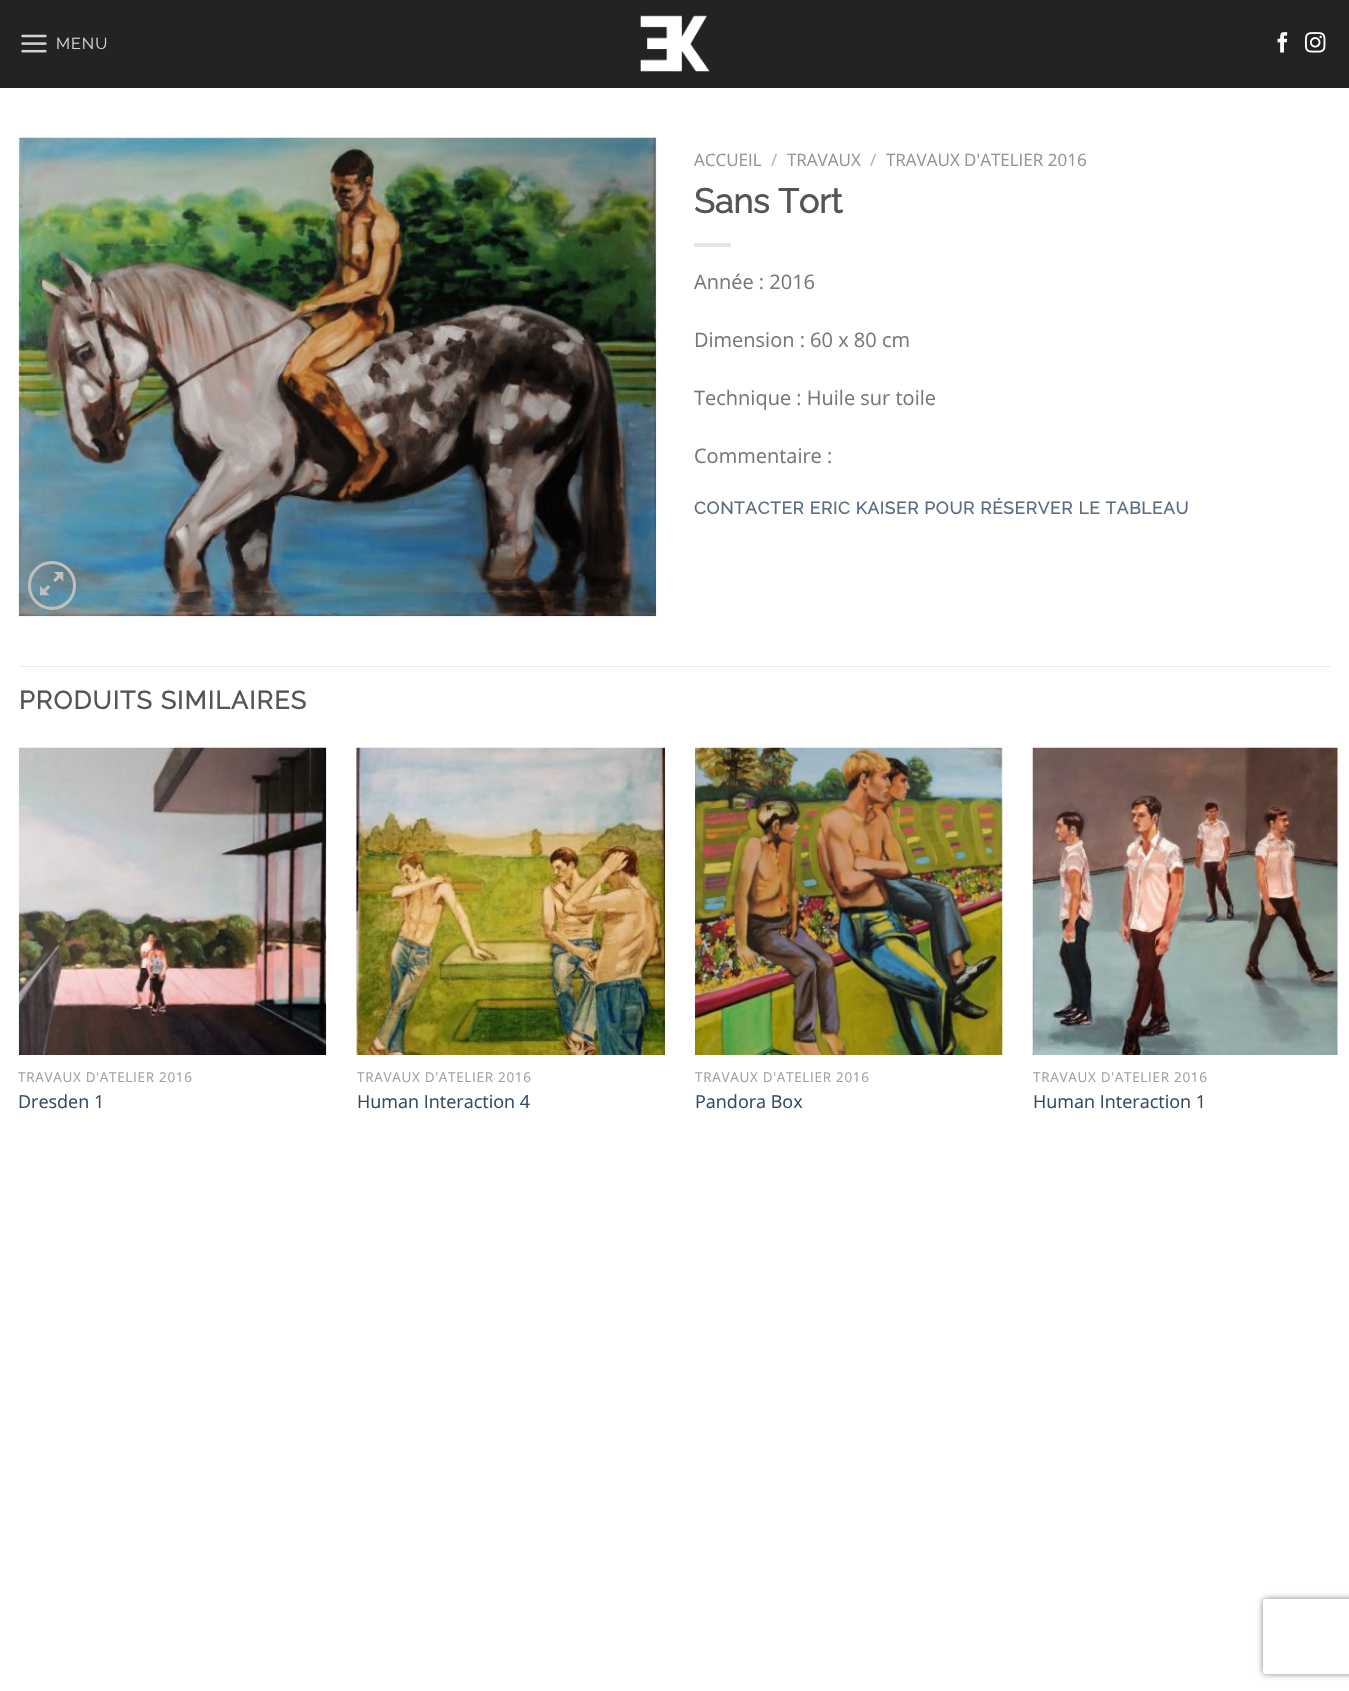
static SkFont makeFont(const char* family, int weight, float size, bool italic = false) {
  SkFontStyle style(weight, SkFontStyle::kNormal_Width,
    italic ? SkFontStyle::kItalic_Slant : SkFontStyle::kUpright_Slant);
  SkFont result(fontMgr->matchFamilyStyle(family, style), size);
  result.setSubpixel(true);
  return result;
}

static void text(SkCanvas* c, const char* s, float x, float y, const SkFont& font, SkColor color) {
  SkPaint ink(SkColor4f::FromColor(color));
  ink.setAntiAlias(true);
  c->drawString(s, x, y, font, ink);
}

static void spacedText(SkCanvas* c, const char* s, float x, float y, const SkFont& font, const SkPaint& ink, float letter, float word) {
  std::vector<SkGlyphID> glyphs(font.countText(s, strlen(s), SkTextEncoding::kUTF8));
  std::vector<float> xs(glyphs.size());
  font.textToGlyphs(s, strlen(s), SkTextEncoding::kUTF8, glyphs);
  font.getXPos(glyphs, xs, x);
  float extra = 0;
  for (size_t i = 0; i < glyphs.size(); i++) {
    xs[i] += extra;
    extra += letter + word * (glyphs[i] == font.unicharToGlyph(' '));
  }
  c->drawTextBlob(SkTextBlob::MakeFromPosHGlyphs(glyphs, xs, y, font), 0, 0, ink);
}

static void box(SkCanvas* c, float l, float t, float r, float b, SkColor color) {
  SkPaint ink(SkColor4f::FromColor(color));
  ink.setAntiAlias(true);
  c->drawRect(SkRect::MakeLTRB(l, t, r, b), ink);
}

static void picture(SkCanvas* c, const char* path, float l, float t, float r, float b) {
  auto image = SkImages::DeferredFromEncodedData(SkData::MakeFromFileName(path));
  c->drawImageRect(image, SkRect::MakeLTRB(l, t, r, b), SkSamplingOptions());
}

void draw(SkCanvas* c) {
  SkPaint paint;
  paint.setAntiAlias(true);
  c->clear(0xffffffff);
  box(c, 0, 0, 1349, 88, 0xff232323);
  picture(c, "img_01.png", 21, 34, 47, 53);
  SkFont face1 = makeFont("Raleway", 100, 16);
  paint.setColor(0xffd3d3d3);
  spacedText(c, "MENU", 56, 49, face1, paint, 1, 0);
  picture(c, "img_02.png", 640, 15, 710, 72);
  picture(c, "img_03.png", 1277, 32, 1288, 53);
  picture(c, "img_04.png", 1305, 32, 1326, 53);
  picture(c, "img_05.png", 18, 137, 657, 617);
  paint.setStyle(SkPaint::kStroke_Style);
  paint.setStrokeWidth(3);
  paint.setColor(0xffc0c0c0);
  c->drawRoundRect(SkRect::MakeLTRB(29.5f, 562.5f, 74.5f, 608.5f), 22.5f, 22.5f, paint);
  picture(c, "img_06.png", 40, 571, 64, 596);
  SkFont face2 = makeFont("Open Sans", 400, 17);
  text(c, "ACCUEIL", 694, 166, face2, 0xff949494);
  text(c, "/", 771, 166, face2, 0xffb2b2b2);
  text(c, "TRAVAUX", 787, 166, face2, 0xff949494);
  text(c, "/", 870, 166, face2, 0xffb2b2b2);
  text(c, "TRAVAUX D'ATELIER 2016", 886, 166, face2, 0xff949494);
  SkFont face3 = makeFont("Raleway", 700, 34);
  text(c, "Sans Tort", 694, 213, face3, 0xff555555);
  box(c, 694, 243, 731, 247, 0xffe6e6e6);
  SkFont face4 = makeFont("Open Sans", 400, 20);
  text(c, "Année : 2016", 694, 289, face4, 0xff777777);
  text(c, "Dimension : 60 x 80 cm", 694, 347, face4, 0xff777777);
  text(c, "Technique : Huile sur toile", 694, 405, face4, 0xff777777);
  text(c, "Commentaire :", 694, 463, face4, 0xff777777);
  SkFont face5 = makeFont("Raleway", 700, 17);
  paint.setStyle(SkPaint::kFill_Style);
  paint.setColor(0xff5c6d81);
  spacedText(c, "CONTACTER ERIC KAISER POUR RÉSERVER LE TABLEAU", 694, 514, face5, paint, 0.85f, 0);
  box(c, 19, 666, 1331, 667, 0xffececec);
  SkFont face6 = makeFont("Raleway", 700, 25);
  paint.setColor(0xff555555);
  spacedText(c, "PRODUITS SIMILAIRES", 19, 709, face6, paint, 1.25f, 0);
  picture(c, "img_07.png", 18, 747, 327, 1055);
  SkFont face7 = makeFont("Open Sans", 400, 13.5f);
  paint.setColor(0xffa0a0a0);
  spacedText(c, "TRAVAUX D'ATELIER 2016", 18, 1082, face7, paint, 0.7f, 0);
  SkFont face8 = makeFont("Open Sans", 400, 18);
  text(c, "Dresden 1", 18, 1108, face8, 0xff334862);
  picture(c, "img_08.png", 356, 747, 665, 1055);
  spacedText(c, "TRAVAUX D'ATELIER 2016", 357, 1082, face7, paint, 0.7f, 0);
  text(c, "Human Interaction 4", 357, 1108, face8, 0xff334862);
  picture(c, "img_09.png", 695, 747, 1003, 1055);
  spacedText(c, "TRAVAUX D'ATELIER 2016", 695, 1082, face7, paint, 0.7f, 0);
  text(c, "Pandora Box", 695, 1108, face8, 0xff334862);
  picture(c, "img_10.png", 1032, 747, 1338, 1055);
  spacedText(c, "TRAVAUX D'ATELIER 2016", 1033, 1082, face7, paint, 0.7f, 0);
  text(c, "Human Interaction 1", 1033, 1108, face8, 0xff334862);
  c->save();
  c->clipPath(SkPathBuilder(SkPathFillType::kEvenOdd).moveTo(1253, 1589).lineTo(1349, 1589).lineTo(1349, 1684).lineTo(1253, 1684).close().moveTo(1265.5f, 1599).lineTo(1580.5f, 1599).cubicTo(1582, 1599, 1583, 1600, 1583, 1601.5f).lineTo(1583, 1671.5f).cubicTo(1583, 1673, 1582, 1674, 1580.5f, 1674).lineTo(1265.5f, 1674).cubicTo(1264, 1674, 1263, 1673, 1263, 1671.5f).lineTo(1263, 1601.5f).cubicTo(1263, 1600, 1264, 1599, 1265.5f, 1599).close().detach(), true);
  paint.setColor(0xff808080);
  paint.setMaskFilter(SkMaskFilter::MakeBlur(kNormal_SkBlurStyle, 3));
  c->drawRoundRect(SkRect::MakeLTRB(1263, 1599, 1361, 1674), 2.5f, 2.5f, paint);
  paint.setMaskFilter(nullptr);
  c->restore();
}
